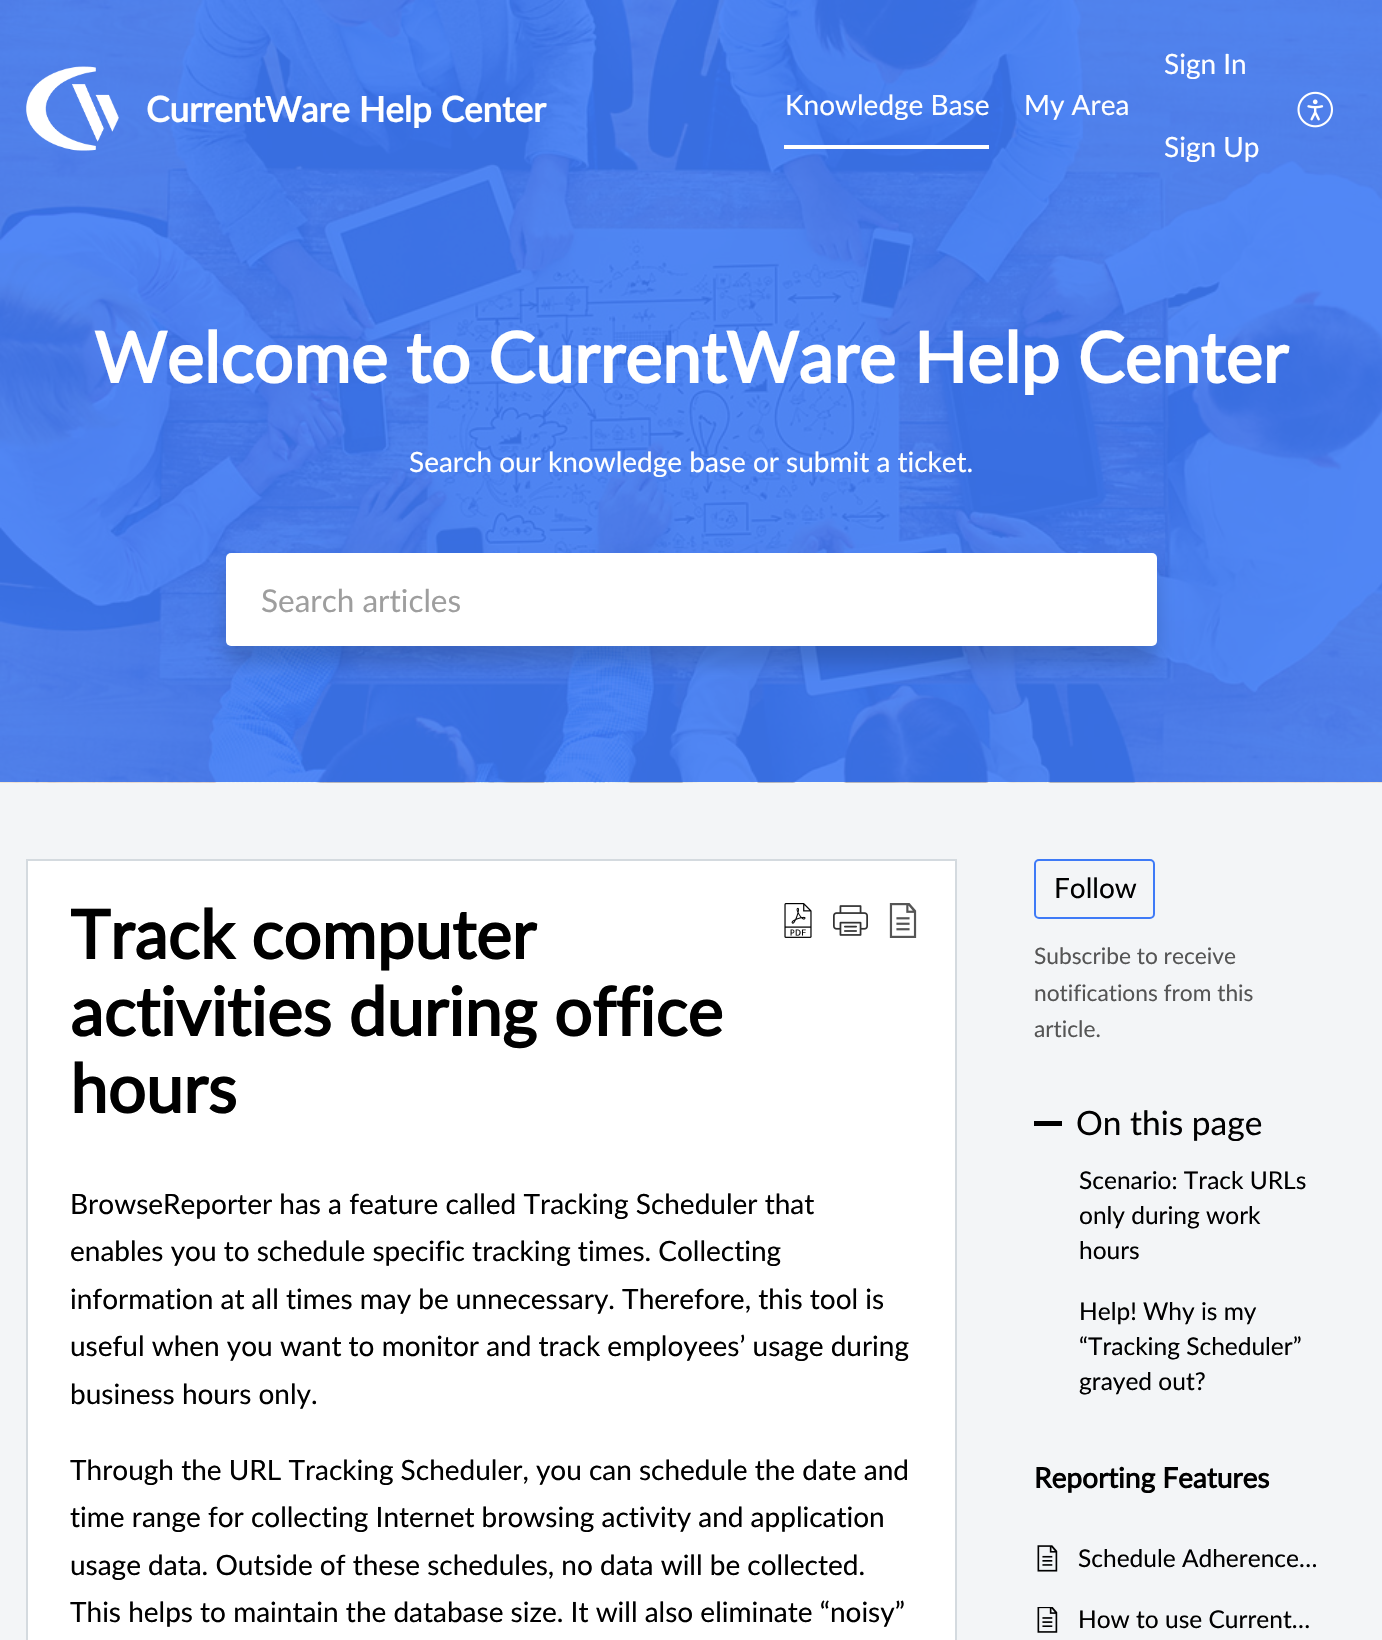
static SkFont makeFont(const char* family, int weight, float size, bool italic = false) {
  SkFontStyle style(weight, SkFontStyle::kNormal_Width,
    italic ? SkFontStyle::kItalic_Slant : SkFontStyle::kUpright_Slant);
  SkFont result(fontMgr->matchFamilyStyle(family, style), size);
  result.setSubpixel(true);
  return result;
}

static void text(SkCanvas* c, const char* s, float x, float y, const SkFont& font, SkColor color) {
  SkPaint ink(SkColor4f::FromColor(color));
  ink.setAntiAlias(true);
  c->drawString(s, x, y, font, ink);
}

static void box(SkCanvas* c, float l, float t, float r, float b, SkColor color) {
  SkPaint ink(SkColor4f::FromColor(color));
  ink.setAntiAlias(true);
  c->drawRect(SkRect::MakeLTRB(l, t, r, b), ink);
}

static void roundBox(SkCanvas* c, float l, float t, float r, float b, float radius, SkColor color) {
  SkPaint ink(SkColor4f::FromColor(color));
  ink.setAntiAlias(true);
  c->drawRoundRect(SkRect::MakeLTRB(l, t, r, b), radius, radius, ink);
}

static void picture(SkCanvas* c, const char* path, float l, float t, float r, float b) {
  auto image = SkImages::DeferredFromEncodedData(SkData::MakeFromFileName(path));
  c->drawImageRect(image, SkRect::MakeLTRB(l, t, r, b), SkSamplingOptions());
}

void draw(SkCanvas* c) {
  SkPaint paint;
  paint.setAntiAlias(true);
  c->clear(0xfff3f5f7);
  picture(c, "img_01.png", 0, 0, 1382, 783);
  picture(c, "img_02.png", 26, 66, 119, 151);
  SkFont face1 = makeFont("Lato", 700, 35);
  text(c, "CurrentWare Help Center", 146, 122, face1, 0xffffffff);
  box(c, 784, 145, 989, 149, 0xffffffff);
  SkFont face2 = makeFont("Lato", 400, 28);
  text(c, "Knowledge Base", 785, 115, face2, 0xffffffff);
  text(c, "My Area", 1024, 115, face2, 0xffffffff);
  text(c, "Sign In", 1164, 74, face2, 0xffffffff);
  text(c, "Sign Up", 1164, 157, face2, 0xffffffff);
  picture(c, "img_03.png", 1297, 91, 1333, 128);
  SkFont face3 = makeFont("Lato", 700, 70);
  text(c, "Welcome to CurrentWare Help Center", 94, 383, face3, 0xffffffff);
  text(c, "Search our knowledge base or submit a ticket.", 409, 472, face2, 0xffffffff);
  paint.setColor(0x29000000);
  paint.setMaskFilter(SkMaskFilter::MakeBlur(kNormal_SkBlurStyle, 9));
  c->drawRect(SkRect::MakeLTRB(226, 571, 1157, 663), paint);
  paint.setMaskFilter(nullptr);
  roundBox(c, 226, 553, 1157, 646, 5, 0xffffffff);
  SkFont face4 = makeFont("Lato", 400, 31.5f);
  text(c, "Search articles", 261, 612, face4, 0xff9e9e9e);
  paint.setColor(0xffffffff);
  c->drawRect(SkRect::MakeLTRB(27, 860, 956, 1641), paint);
  paint.setStyle(SkPaint::kStroke_Style);
  paint.setStrokeWidth(2);
  paint.setColor(0xffd4dadf);
  c->drawRect(SkRect::MakeLTRB(27, 860, 956, 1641), paint);
  SkFont face5 = makeFont("Lato", 700, 67.25f);
  text(c, "Track computer", 70, 959, face5, 0xff000000);
  text(c, "activities during office", 70, 1036, face5, 0xff000000);
  text(c, "hours", 70, 1113, face5, 0xff000000);
  picture(c, "img_04.png", 784, 903, 812, 938);
  picture(c, "img_05.png", 833, 905, 868, 936);
  picture(c, "img_06.png", 889, 903, 917, 938);
  text(c, "BrowseReporter has a feature called Tracking Scheduler that", 70, 1214, face2, 0xff000000);
  text(c, "enables you to schedule specific tracking times. Collecting", 70, 1261, face2, 0xff000000);
  text(c, "information at all times may be unnecessary. Therefore, this tool is", 70, 1309, face2, 0xff000000);
  text(c, "useful when you want to monitor and track employees’ usage during", 70, 1356, face2, 0xff000000);
  text(c, "business hours only.", 70, 1404, face2, 0xff000000);
  text(c, "Through the URL Tracking Scheduler, you can schedule the date and", 70, 1480, face2, 0xff000000);
  text(c, "time range for collecting Internet browsing activity and application", 70, 1527, face2, 0xff000000);
  text(c, "usage data. Outside of these schedules, no data will be collected.", 70, 1575, face2, 0xff000000);
  text(c, "This helps to maintain the database size. It will also eliminate “noisy”", 70, 1622, face2, 0xff000000);
  paint.setColor(0xff3e7af7);
  c->drawRoundRect(SkRect::MakeLTRB(1035, 860, 1154, 918), 4, 4, paint);
  text(c, "Follow", 1054, 898, face2, 0xff000000);
  SkFont face6 = makeFont("Lato", 400, 22.75f);
  text(c, "Subscribe to receive", 1034, 964, face6, 0xff555555);
  text(c, "notifications from this", 1034, 1001, face6, 0xff555555);
  text(c, "article.", 1034, 1037, face6, 0xff555555);
  box(c, 1034, 1121, 1062, 1126, 0xff000000);
  SkFont face7 = makeFont("Lato", 400, 33.5f);
  text(c, "On this page", 1076, 1135, face7, 0xff000000);
  SkFont face8 = makeFont("Lato", 400, 24.5f);
  text(c, "Scenario: Track URLs", 1079, 1189, face8, 0xff000000);
  text(c, "only during work", 1079, 1224, face8, 0xff000000);
  text(c, "hours", 1079, 1259, face8, 0xff000000);
  text(c, "Help! Why is my", 1079, 1320, face8, 0xff000000);
  text(c, "“Tracking Scheduler”", 1079, 1355, face8, 0xff000000);
  text(c, "grayed out?", 1079, 1390, face8, 0xff000000);
  SkFont face9 = makeFont("Lato", 700, 28);
  text(c, "Reporting Features", 1034, 1488, face9, 0xff000000);
  picture(c, "img_07.png", 1037, 1545, 1058, 1572);
  text(c, "Schedule Adherence…", 1078, 1567, face8, 0xff000000);
  picture(c, "img_08.png", 1037, 1607, 1058, 1633);
  text(c, "How to use Current…", 1078, 1628, face8, 0xff000000);
}
